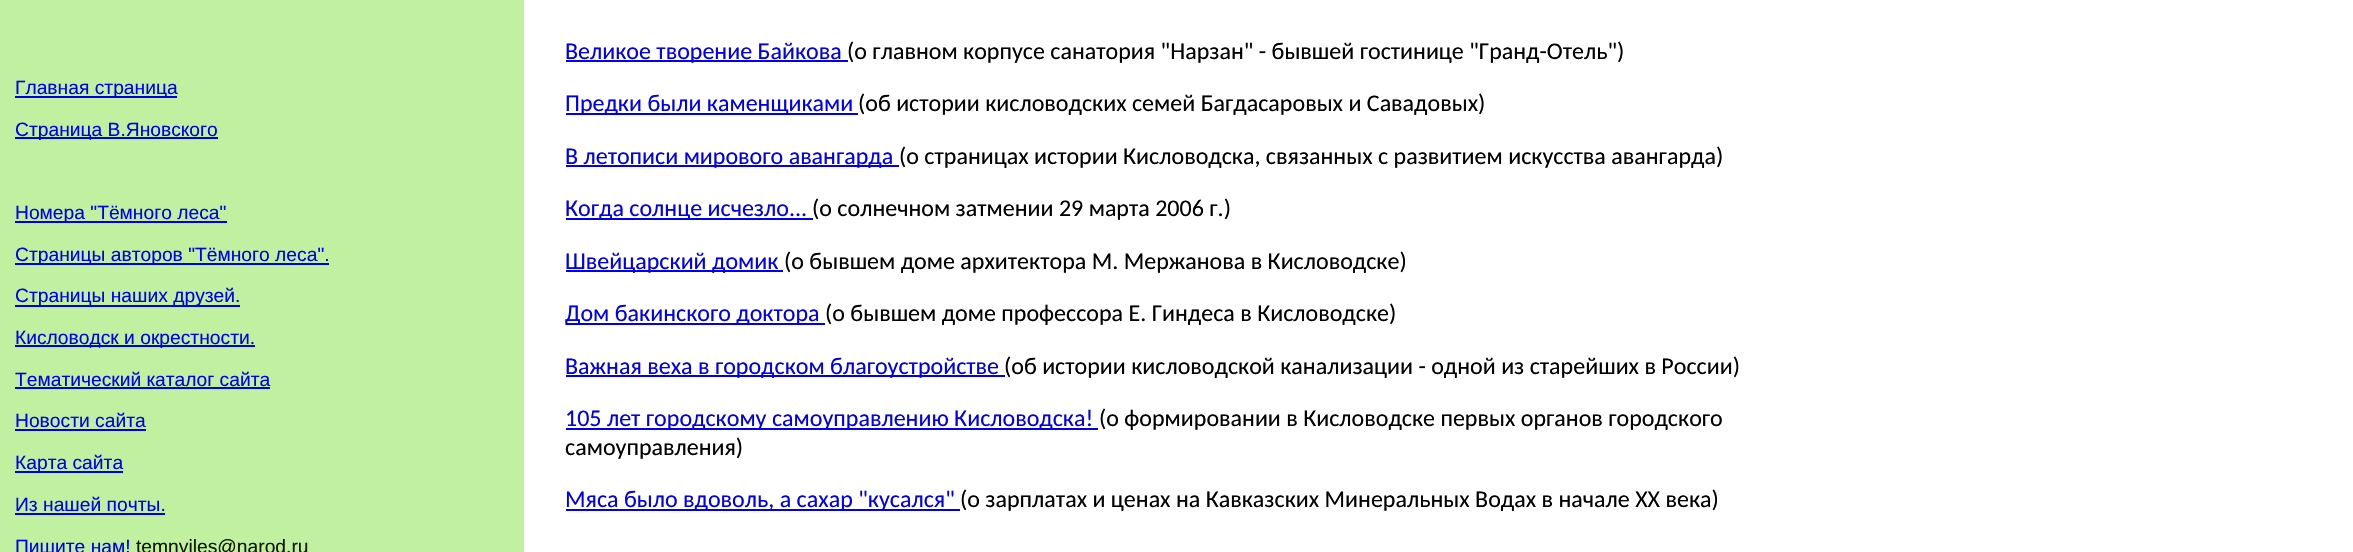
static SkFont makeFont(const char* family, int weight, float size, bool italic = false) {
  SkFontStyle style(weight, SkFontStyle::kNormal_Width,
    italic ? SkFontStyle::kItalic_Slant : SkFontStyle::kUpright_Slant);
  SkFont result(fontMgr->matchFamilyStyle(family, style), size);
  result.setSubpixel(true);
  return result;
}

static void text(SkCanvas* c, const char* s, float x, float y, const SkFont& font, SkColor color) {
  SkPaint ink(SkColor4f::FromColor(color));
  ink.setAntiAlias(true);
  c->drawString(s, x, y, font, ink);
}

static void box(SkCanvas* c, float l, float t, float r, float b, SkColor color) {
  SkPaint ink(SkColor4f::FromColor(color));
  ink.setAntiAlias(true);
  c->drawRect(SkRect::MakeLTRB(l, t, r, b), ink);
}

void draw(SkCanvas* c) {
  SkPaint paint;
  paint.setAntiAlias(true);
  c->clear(0xffffffff);
  box(c, 566, 60, 848, 62, 0xff0000ee);
  SkFont face1 = makeFont("Carlito", 400, 24);
  text(c, "Великое творение Байкова", 565, 59, face1, 0xff0000ee);
  text(c, "(о главном корпусе санатория \"Нарзан\" - бывшей гостинице \"Гранд-Отель\")", 847, 59, face1, 0xff000000);
  box(c, 0, 0, 524, 552, 0xffc0f0a0);
  box(c, 15, 96, 177, 98, 0xff0000ee);
  SkFont face2 = makeFont("Liberation Sans", 400, 19.25f);
  text(c, "Главная страница", 15, 94, face2, 0xff0000ee);
  box(c, 15, 137, 218, 139, 0xff0000ee);
  text(c, "Страница В.Яновского", 15, 136, face2, 0xff0000ee);
  box(c, 15, 221, 227, 223, 0xff0000ee);
  text(c, "Номера \"Тёмного леса\"", 15, 219, face2, 0xff0000ee);
  box(c, 15, 263, 329, 265, 0xff0000ee);
  text(c, "Страницы авторов \"Тёмного леса\".", 15, 261, face2, 0xff0000ee);
  box(c, 15, 305, 240, 307, 0xff0000ee);
  text(c, "Страницы наших друзей.", 15, 302, face2, 0xff0000ee);
  box(c, 15, 345, 255, 347, 0xff0000ee);
  text(c, "Кисловодск и окрестности.", 15, 344, face2, 0xff0000ee);
  text(c, "Тематический каталог сайта", 15, 386, face2, 0xff0000ee);
  box(c, 15, 387, 270, 389, 0xff0000ee);
  text(c, "Новости сайта", 15, 427, face2, 0xff0000ee);
  box(c, 15, 429, 146, 431, 0xff0000ee);
  box(c, 15, 471, 123, 473, 0xff0000ee);
  text(c, "Карта сайта", 15, 469, face2, 0xff0000ee);
  text(c, "Из нашей почты.", 15, 511, face2, 0xff0000ee);
  box(c, 15, 513, 165, 515, 0xff0000ee);
  text(c, "Пишите нам!", 15, 553, face2, 0xff0000ee);
  text(c, "temnyjles@narod.ru", 136, 553, face2, 0xff101800);
  box(c, 566, 113, 858, 115, 0xff0000ee);
  text(c, "Предки были каменщиками", 565, 111, face1, 0xff0000ee);
  text(c, "(об истории кисловодских семей Багдасаровых и Савадовых)", 858, 111, face1, 0xff000000);
  box(c, 566, 165, 899, 167, 0xff0000ee);
  text(c, "В летописи мирового авангарда", 565, 164, face1, 0xff0000ee);
  text(c, "(о страницах истории Кисловодска, связанных с развитием искусства авангарда)", 899, 164, face1, 0xff000000);
  box(c, 566, 218, 813, 220, 0xff0000ee);
  text(c, "Когда солнце исчезло...", 565, 216, face1, 0xff0000ee);
  text(c, "(о солнечном затмении 29 марта 2006 г.)", 812, 216, face1, 0xff000000);
  box(c, 566, 270, 783, 272, 0xff0000ee);
  text(c, "Швейцарский домик", 565, 269, face1, 0xff0000ee);
  text(c, "(о бывшем доме архитектора М. Мержанова в Кисловодске)", 784, 269, face1, 0xff000000);
  box(c, 566, 323, 825, 325, 0xff0000ee);
  text(c, "Дом бакинского доктора", 565, 321, face1, 0xff0000ee);
  text(c, "(о бывшем доме профессора Е. Гиндеса в Кисловодске)", 825, 321, face1, 0xff000000);
  box(c, 566, 375, 1005, 377, 0xff0000ee);
  text(c, "Важная веха в городском благоустройстве", 565, 374, face1, 0xff0000ee);
  text(c, "(об истории кисловодской канализации - одной из старейших в России)", 1004, 374, face1, 0xff000000);
  box(c, 566, 428, 1098, 430, 0xff0000ee);
  text(c, "105 лет городскому самоуправлению Кисловодска!", 565, 426, face1, 0xff0000ee);
  text(c, "(о формировании в Кисловодске первых органов городского", 1099, 426, face1, 0xff000000);
  text(c, "самоуправления)", 565, 455, face1, 0xff000000);
  box(c, 566, 509, 960, 511, 0xff0000ee);
  text(c, "Мяса было вдоволь, а сахар \"кусался\"", 565, 507, face1, 0xff0000ee);
  text(c, "(о зарплатах и ценах на Кавказских Минеральных Водах в начале XX века)", 960, 507, face1, 0xff000000);
}
